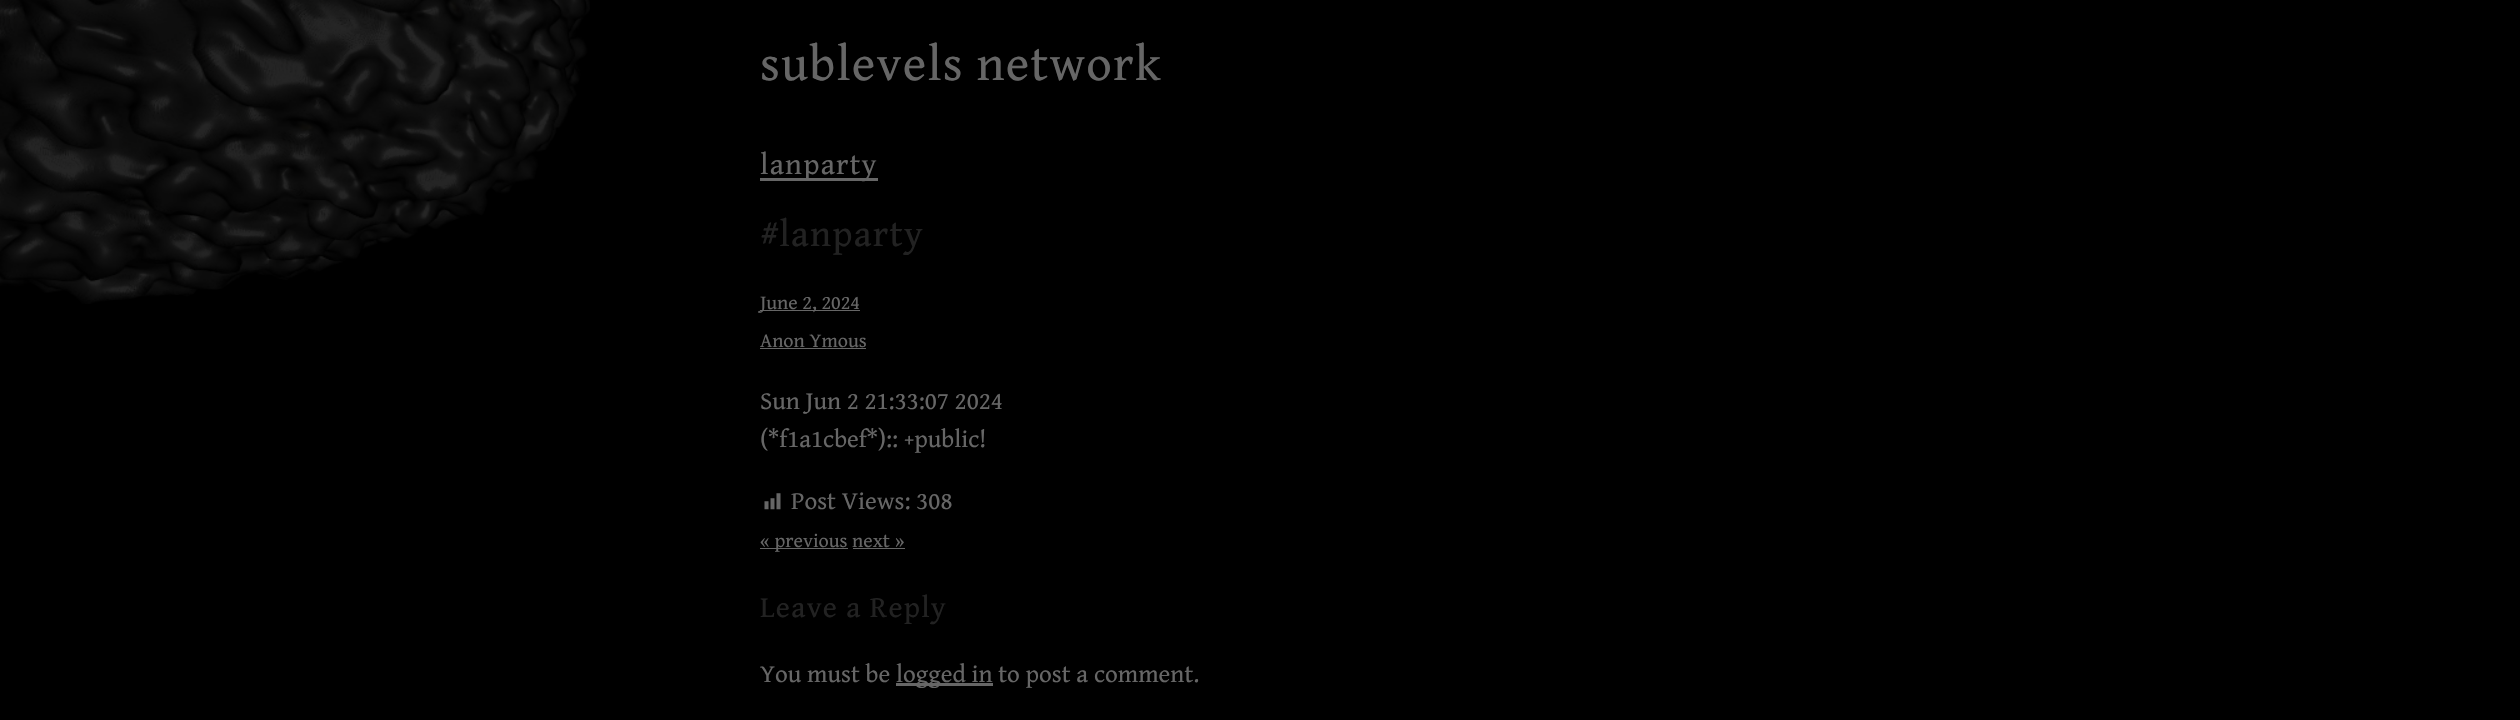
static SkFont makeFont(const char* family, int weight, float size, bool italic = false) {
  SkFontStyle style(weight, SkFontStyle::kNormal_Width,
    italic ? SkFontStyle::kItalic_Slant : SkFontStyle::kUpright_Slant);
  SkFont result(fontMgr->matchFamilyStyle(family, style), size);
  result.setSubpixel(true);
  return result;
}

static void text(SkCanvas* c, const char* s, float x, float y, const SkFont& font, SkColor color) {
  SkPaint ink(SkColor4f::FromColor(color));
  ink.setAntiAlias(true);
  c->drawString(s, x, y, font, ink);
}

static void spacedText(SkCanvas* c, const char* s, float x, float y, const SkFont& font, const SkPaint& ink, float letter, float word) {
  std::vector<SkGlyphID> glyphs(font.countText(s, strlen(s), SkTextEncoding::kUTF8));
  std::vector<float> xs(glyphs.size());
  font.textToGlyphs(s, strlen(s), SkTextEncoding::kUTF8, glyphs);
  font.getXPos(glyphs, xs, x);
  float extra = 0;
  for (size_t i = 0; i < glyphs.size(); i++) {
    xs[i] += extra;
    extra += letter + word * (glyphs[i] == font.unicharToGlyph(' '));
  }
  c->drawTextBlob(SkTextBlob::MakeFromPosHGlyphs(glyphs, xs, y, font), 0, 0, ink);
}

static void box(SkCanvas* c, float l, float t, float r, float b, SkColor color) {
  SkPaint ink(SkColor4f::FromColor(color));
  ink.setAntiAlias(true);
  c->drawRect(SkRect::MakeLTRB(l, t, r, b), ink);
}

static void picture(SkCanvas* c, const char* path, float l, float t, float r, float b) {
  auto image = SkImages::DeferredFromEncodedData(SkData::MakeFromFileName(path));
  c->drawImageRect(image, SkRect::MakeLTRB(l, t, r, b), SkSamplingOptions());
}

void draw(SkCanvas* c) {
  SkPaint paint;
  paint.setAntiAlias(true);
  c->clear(0xff000000);
  picture(c, "img_01.png", 0, 0, 590, 304);
  SkFont face1 = makeFont("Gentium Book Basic", 400, 50);
  paint.setColor(0xff666666);
  spacedText(c, "sublevels network", 760, 80, face1, paint, 1.25f, 0);
  box(c, 760, 178, 878, 181, 0xff666666);
  SkFont face2 = makeFont("Gentium Book Basic", 400, 30);
  spacedText(c, "lanparty", 760, 174, face2, paint, 1.25f, 0);
  SkFont face3 = makeFont("Gentium Book Basic", 400, 37.5f);
  paint.setColor(0xff222222);
  spacedText(c, "#lanparty", 760, 246, face3, paint, 1.25f, 0);
  box(c, 760, 310, 860, 311, 0xff666666);
  SkFont face4 = makeFont("Gentium Book Basic", 400, 20);
  text(c, "June 2, 2024", 760, 309, face4, 0xff666666);
  text(c, "Anon Ymous", 760, 347, face4, 0xff666666);
  box(c, 760, 348, 866, 349, 0xff666666);
  SkFont face5 = makeFont("Gentium Book Basic", 400, 25);
  text(c, "Sun Jun 2 21:33:07 2024", 760, 409, face5, 0xff666666);
  text(c, "(*f1a1cbef*):: +public!", 760, 447, face5, 0xff666666);
  picture(c, "img_02.png", 764, 493, 781, 510);
  text(c, "Post Views: 308", 791, 509, face5, 0xff666666);
  box(c, 760, 548, 848, 549, 0xff666666);
  text(c, "« previous next »", 760, 547, face4, 0xff666666);
  box(c, 853, 548, 905, 549, 0xff666666);
  spacedText(c, "Leave a Reply", 760, 617, face2, paint, 1.25f, 0);
  text(c, "You must be", 760, 682, face5, 0xff666666);
  box(c, 896, 683, 993, 686, 0xff666666);
  text(c, "logged in to post a comment.", 896, 682, face5, 0xff666666);
}
